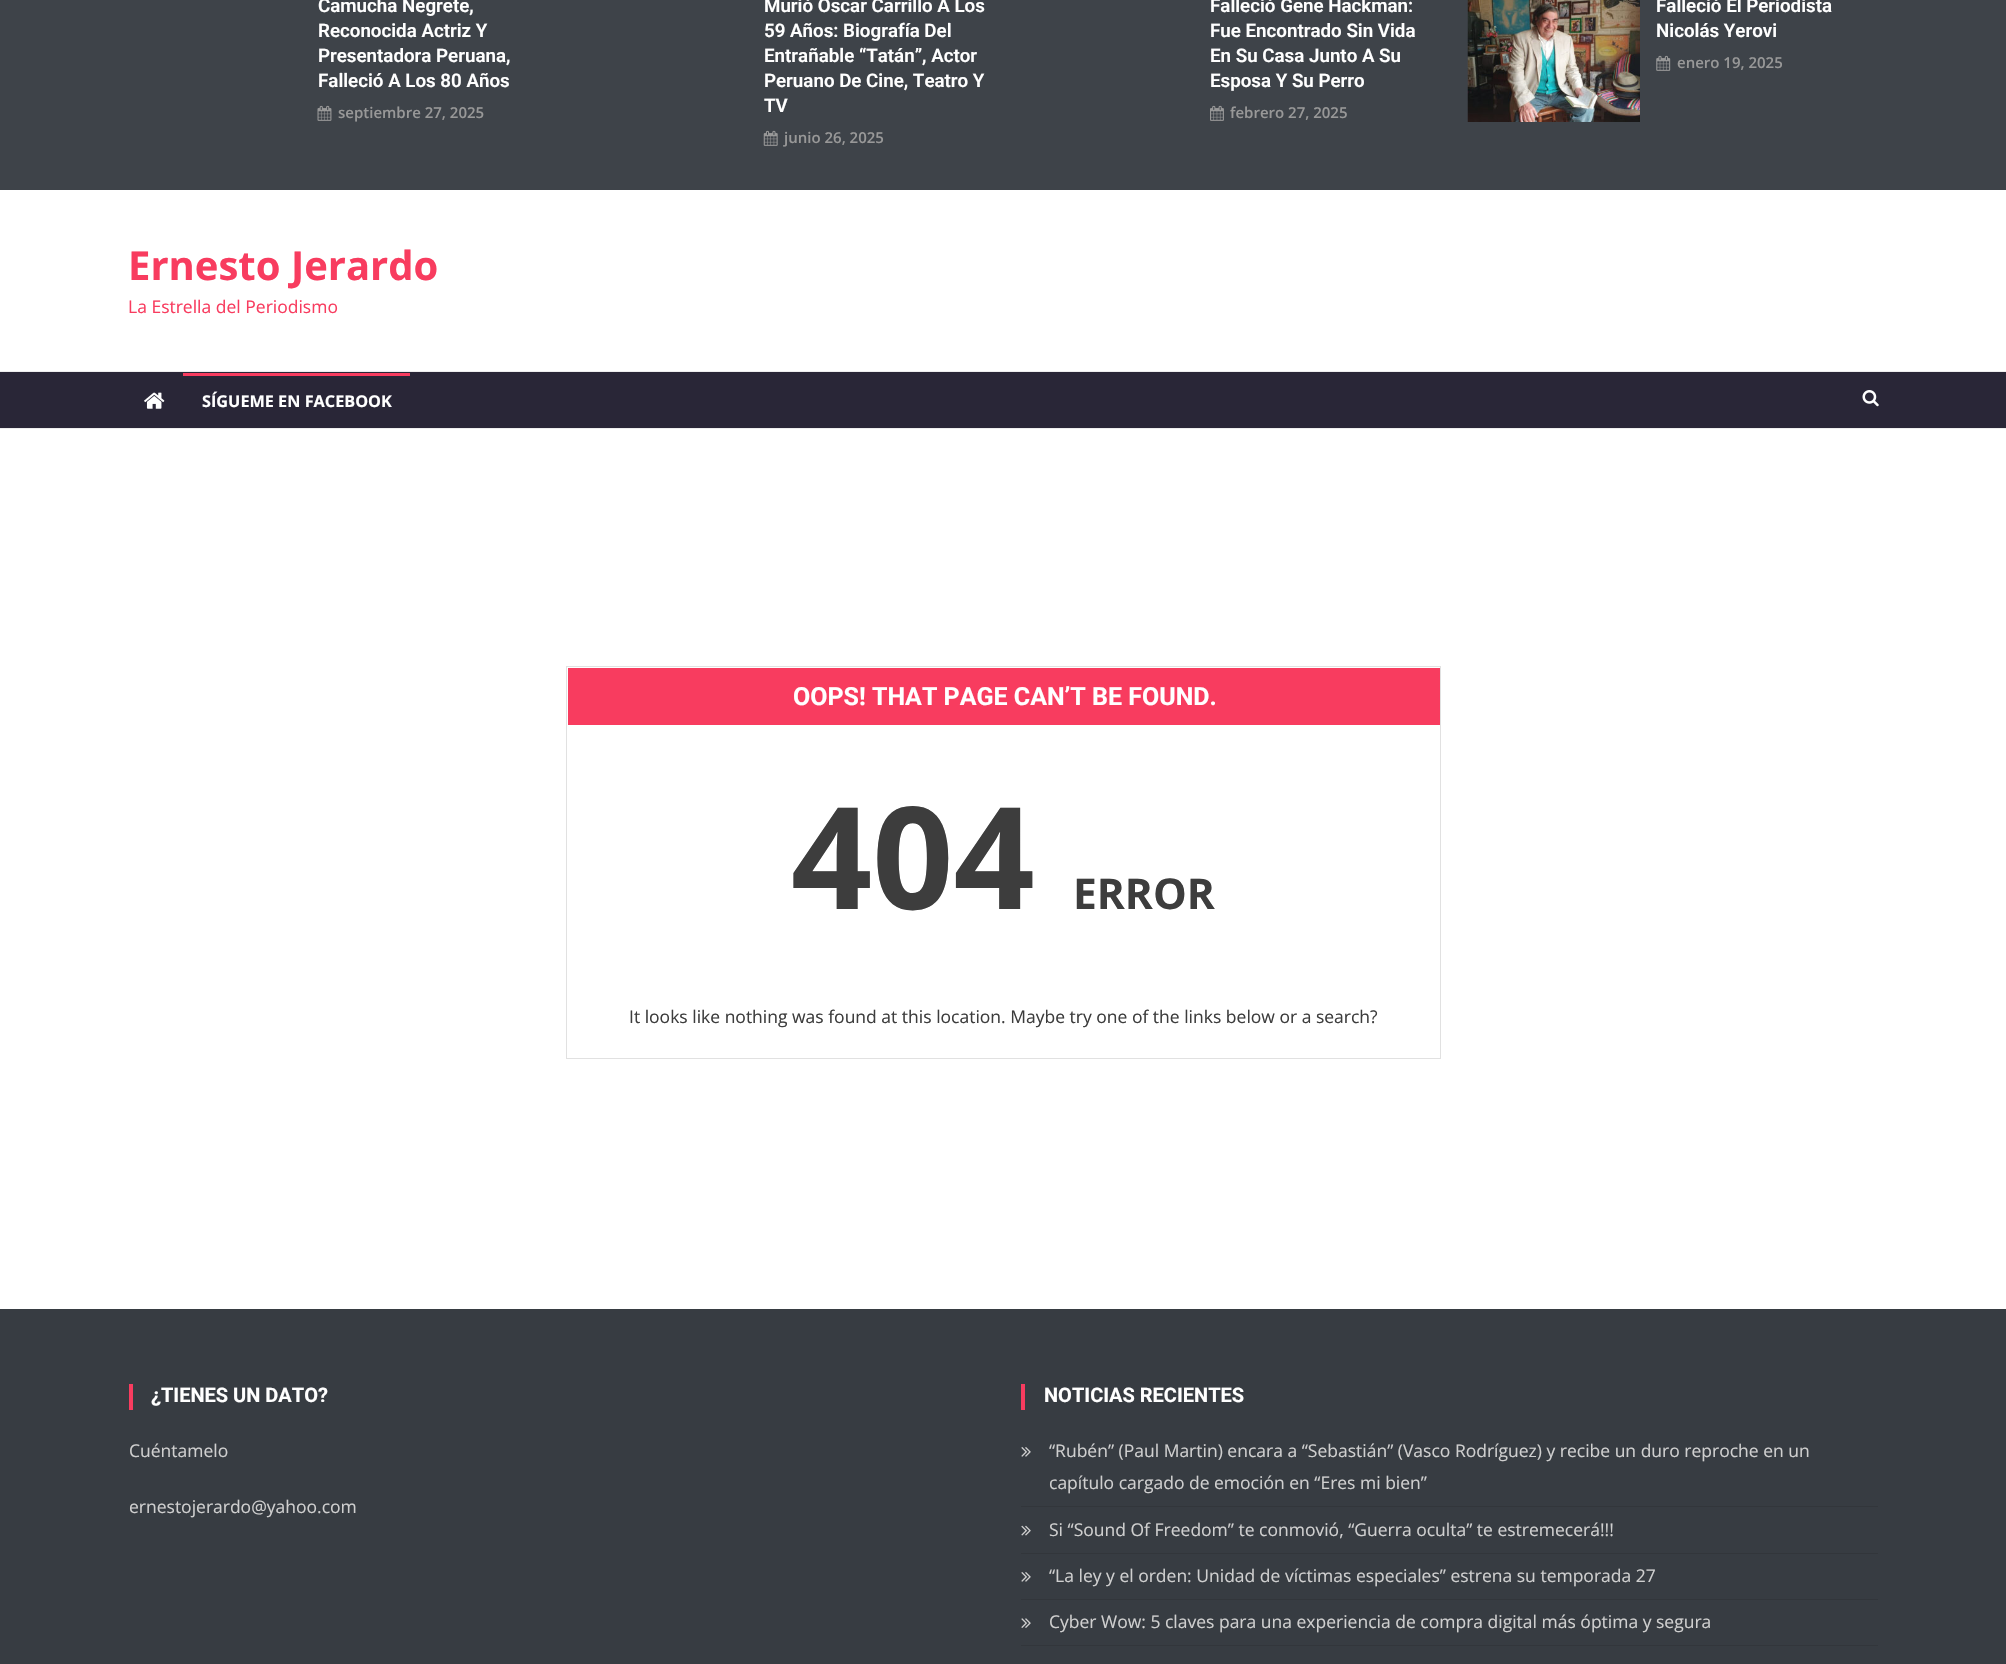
static SkFont makeFont(const char* family, int weight, float size, bool italic = false) {
  SkFontStyle style(weight, SkFontStyle::kNormal_Width,
    italic ? SkFontStyle::kItalic_Slant : SkFontStyle::kUpright_Slant);
  SkFont result(fontMgr->matchFamilyStyle(family, style), size);
  result.setSubpixel(true);
  return result;
}

static void text(SkCanvas* c, const char* s, float x, float y, const SkFont& font, SkColor color) {
  SkPaint ink(SkColor4f::FromColor(color));
  ink.setAntiAlias(true);
  c->drawString(s, x, y, font, ink);
}

static void box(SkCanvas* c, float l, float t, float r, float b, SkColor color) {
  SkPaint ink(SkColor4f::FromColor(color));
  ink.setAntiAlias(true);
  c->drawRect(SkRect::MakeLTRB(l, t, r, b), ink);
}

static void picture(SkCanvas* c, const char* path, float l, float t, float r, float b) {
  auto image = SkImages::DeferredFromEncodedData(SkData::MakeFromFileName(path));
  c->drawImageRect(image, SkRect::MakeLTRB(l, t, r, b), SkSamplingOptions());
}

void draw(SkCanvas* c) {
  SkPaint paint;
  paint.setAntiAlias(true);
  c->clear(0xffffffff);
  box(c, 0, 0, 2006, 190, 0xff3e4349);
  SkFont face1 = makeFont("Roboto", 600, 18.75f);
  text(c, "Camucha Negrete,", 318, 12, face1, 0xffffffff);
  text(c, "Reconocida Actriz Y", 318, 37, face1, 0xffffffff);
  text(c, "Presentadora Peruana,", 318, 62, face1, 0xffffffff);
  text(c, "Falleció A Los 80 Años", 318, 87, face1, 0xffffffff);
  picture(c, "img_01.png", 317, 105, 332, 121);
  SkFont face2 = makeFont("Open Sans", 600, 15);
  text(c, "septiembre 27, 2025", 338, 118, face2, 0xff989898);
  text(c, "Murió Óscar Carrillo A Los", 764, 12, face1, 0xffffffff);
  text(c, "59 Años: Biografía Del", 764, 37, face1, 0xffffffff);
  text(c, "Entrañable “Tatán”, Actor", 764, 62, face1, 0xffffffff);
  text(c, "Peruano De Cine, Teatro Y", 764, 87, face1, 0xffffffff);
  text(c, "TV", 764, 112, face1, 0xffffffff);
  picture(c, "img_02.png", 763, 130, 778, 146);
  text(c, "junio 26, 2025", 784, 143, face2, 0xff989898);
  text(c, "Falleció Gene Hackman:", 1210, 12, face1, 0xffffffff);
  text(c, "Fue Encontrado Sin Vida", 1210, 37, face1, 0xffffffff);
  text(c, "En Su Casa Junto A Su", 1210, 62, face1, 0xffffffff);
  text(c, "Esposa Y Su Perro", 1210, 87, face1, 0xffffffff);
  picture(c, "img_03.png", 1210, 105, 1224, 121);
  text(c, "febrero 27, 2025", 1230, 118, face2, 0xff989898);
  picture(c, "img_04.png", 1467, 0, 1640, 122);
  text(c, "Falleció El Periodista", 1656, 12, face1, 0xffffffff);
  text(c, "Nicolás Yerovi", 1656, 37, face1, 0xffffffff);
  picture(c, "img_05.png", 1656, 55, 1671, 71);
  text(c, "enero 19, 2025", 1677, 68, face2, 0xff989898);
  SkFont face3 = makeFont("Open Sans", 700, 40);
  text(c, "Ernesto Jerardo", 128, 280, face3, 0xfff83c5f);
  SkFont face4 = makeFont("Open Sans", 400, 17.5f);
  text(c, "La Estrella del Periodismo", 128, 313, face4, 0xfff83c5f);
  box(c, 0, 372, 2006, 428, 0xff292637);
  box(c, 0, 371, 2006, 372, 0xffeeeeee);
  box(c, 0, 428, 2006, 429, 0xffeeeeee);
  picture(c, "img_06.png", 144, 392, 165, 409);
  box(c, 183, 373, 410, 376, 0xfff83c5f);
  SkFont face5 = makeFont("Open Sans", 700, 16.25f);
  text(c, "SÍGUEME EN FACEBOOK", 202, 407, face5, 0xffffffff);
  picture(c, "img_07.png", 1862, 390, 1879, 407);
  paint.setStyle(SkPaint::kStroke_Style);
  paint.setStrokeWidth(1);
  paint.setColor(0xffe1e1e1);
  c->drawRect(SkRect::MakeLTRB(566.5f, 666.5f, 1440.5f, 1058.5f), paint);
  box(c, 568, 668, 1440, 725, 0xfff83c5f);
  SkFont face6 = makeFont("Roboto", 700, 25);
  text(c, "OOPS! THAT PAGE CAN’T BE FOUND.", 793, 705, face6, 0xffffffff);
  SkFont face7 = makeFont("Open Sans", 700, 142);
  text(c, "404", 791, 909, face7, 0xff3d3d3d);
  SkFont face8 = makeFont("Open Sans", 700, 42.5f);
  text(c, "ERROR", 1073, 909, face8, 0xff3d3d3d);
  text(c, "It looks like nothing was found at this location. Maybe try one of the links below or a search?", 629, 1023, face4, 0xff3d3d3d);
  box(c, 0, 1309, 2006, 1664, 0xff373c42);
  box(c, 129, 1384, 133, 1410, 0xfff83c5f);
  SkFont face9 = makeFont("Roboto", 700, 20);
  text(c, "¿TIENES UN DATO?", 151, 1402, face9, 0xffffffff);
  text(c, "Cuéntamelo", 129, 1457, face4, 0xffcfcfcf);
  text(c, "ernestojerardo@yahoo.com", 129, 1513, face4, 0xffcfcfcf);
  box(c, 1021, 1384, 1025, 1410, 0xfff83c5f);
  text(c, "NOTICIAS RECIENTES", 1044, 1402, face9, 0xffffffff);
  box(c, 1021, 1506, 1878, 1507, 0xff32363b);
  picture(c, "img_08.png", 1021, 1447, 1031, 1457);
  text(c, "“Rubén” (Paul Martin) encara a “Sebastián” (Vasco Rodríguez) y recibe un duro reproche en un", 1049, 1457, face4, 0xffcfcfcf);
  text(c, "capítulo cargado de emoción en “Eres mi bien”", 1049, 1489, face4, 0xffcfcfcf);
  box(c, 1021, 1553, 1878, 1554, 0xff32363b);
  picture(c, "img_09.png", 1021, 1525, 1031, 1536);
  text(c, "Si “Sound Of Freedom” te conmovió, “Guerra oculta” te estremecerá!!!", 1049, 1536, face4, 0xffcfcfcf);
  box(c, 1021, 1599, 1878, 1600, 0xff32363b);
  picture(c, "img_08.png", 1021, 1572, 1031, 1582);
  text(c, "“La ley y el orden: Unidad de víctimas especiales” estrena su temporada 27", 1049, 1582, face4, 0xffcfcfcf);
  box(c, 1021, 1645, 1878, 1646, 0xff32363b);
  picture(c, "img_10.png", 1021, 1618, 1031, 1628);
  text(c, "Cyber Wow: 5 claves para una experiencia de compra digital más óptima y segura", 1049, 1628, face4, 0xffcfcfcf);
}
